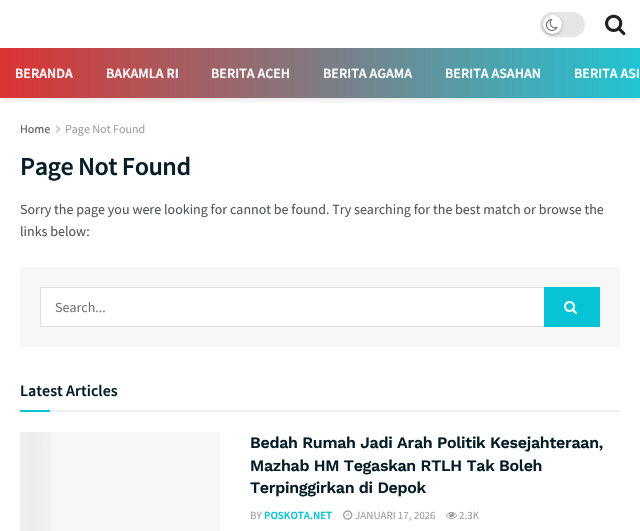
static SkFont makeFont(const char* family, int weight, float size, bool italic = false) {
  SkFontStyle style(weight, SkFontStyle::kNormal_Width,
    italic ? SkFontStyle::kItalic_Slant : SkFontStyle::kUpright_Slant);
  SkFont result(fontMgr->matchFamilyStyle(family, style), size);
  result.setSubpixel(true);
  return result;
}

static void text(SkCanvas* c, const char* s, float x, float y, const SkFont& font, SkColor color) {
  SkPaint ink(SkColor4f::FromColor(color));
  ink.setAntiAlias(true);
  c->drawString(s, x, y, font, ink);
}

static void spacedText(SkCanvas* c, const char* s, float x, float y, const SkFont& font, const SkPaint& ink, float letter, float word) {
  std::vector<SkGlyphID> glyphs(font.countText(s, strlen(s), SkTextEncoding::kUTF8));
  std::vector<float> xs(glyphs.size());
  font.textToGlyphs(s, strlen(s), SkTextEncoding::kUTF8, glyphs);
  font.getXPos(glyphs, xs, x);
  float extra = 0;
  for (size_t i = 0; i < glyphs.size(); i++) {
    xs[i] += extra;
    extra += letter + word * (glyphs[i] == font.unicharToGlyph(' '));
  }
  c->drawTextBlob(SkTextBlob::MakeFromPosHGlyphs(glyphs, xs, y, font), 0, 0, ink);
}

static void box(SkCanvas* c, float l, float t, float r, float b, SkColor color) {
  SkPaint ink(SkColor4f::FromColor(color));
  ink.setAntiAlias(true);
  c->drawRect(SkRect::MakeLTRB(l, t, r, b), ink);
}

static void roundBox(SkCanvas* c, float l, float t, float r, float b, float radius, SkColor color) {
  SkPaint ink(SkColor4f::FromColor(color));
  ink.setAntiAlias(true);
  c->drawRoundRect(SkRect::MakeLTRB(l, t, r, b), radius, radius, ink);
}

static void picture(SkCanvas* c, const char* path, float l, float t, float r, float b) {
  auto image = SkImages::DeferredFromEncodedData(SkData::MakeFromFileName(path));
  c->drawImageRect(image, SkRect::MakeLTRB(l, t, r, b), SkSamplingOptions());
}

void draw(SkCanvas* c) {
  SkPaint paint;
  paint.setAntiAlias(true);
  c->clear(0xffffffff);
  c->save();
  c->clipRect(SkRect::MakeLTRB(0, 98, 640, 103));
  paint.setColor(0x1a000000);
  paint.setMaskFilter(SkMaskFilter::MakeBlur(kNormal_SkBlurStyle, 3));
  c->drawRect(SkRect::MakeLTRB(0, 2, 640, 100), paint);
  paint.setMaskFilter(nullptr);
  c->restore();
  roundBox(c, 540, 12, 585, 37, 12.5f, 0xffe6e6e6);
  paint.setColor(0x4d000000);
  paint.setMaskFilter(SkMaskFilter::MakeBlur(kNormal_SkBlurStyle, 1.5f));
  c->drawRoundRect(SkRect::MakeLTRB(543, 16, 562, 35), 9.5f, 9.5f, paint);
  paint.setMaskFilter(nullptr);
  paint.setColor(0xffffffff);
  c->drawCircle(552.5f, 24.5f, 9.5f, paint);
  picture(c, "img_01.png", 546, 19, 558, 31);
  picture(c, "img_02.png", 605, 14, 626, 36);
  {
    const SkColor colors[] = {0xffdd3333, 0xff21c4d3};
    const float stops[] = {0, 1};
    const SkPoint ends[] = {{0, 73}, {640, 73}};
    paint.setShader(SkGradientShader::MakeLinear(ends, colors, stops, 2, SkTileMode::kClamp));
    paint.setAlpha(255);
  }
  c->drawRect(SkRect::MakeLTRB(0, 48, 640, 98), paint);
  SkFont face1 = makeFont("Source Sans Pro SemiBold", 600, 14);
  text(c, "BERANDA", 15, 78, face1, 0xffffffff);
  text(c, "BAKAMLA RI", 106, 78, face1, 0xffffffff);
  text(c, "BERITA ACEH", 211, 78, face1, 0xffffffff);
  text(c, "BERITA AGAMA", 323, 78, face1, 0xffffffff);
  text(c, "BERITA ASAHAN", 445, 78, face1, 0xffffffff);
  text(c, "BERITA ASI", 574, 78, face1, 0xffffffff);
  SkFont face2 = makeFont("Source Sans Pro", 400, 12);
  text(c, "Home", 20, 133, face2, 0xff53585c);
  picture(c, "img_03.png", 56, 125, 60, 133);
  text(c, "Page Not Found", 65, 133, face2, 0xffa0a0a0);
  SkFont face3 = makeFont("Source Sans Pro SemiBold", 600, 26);
  paint.setShader(nullptr);
  paint.setColor(0xff041d28);
  spacedText(c, "Page Not Found", 20, 175, face3, paint, -0.5f, 0);
  SkFont face4 = makeFont("Source Sans Pro", 400, 14);
  text(c, "Sorry the page you were looking for cannot be found. Try searching for the best match or browse the", 20, 214, face4, 0xff53585c);
  text(c, "links below:", 20, 236, face4, 0xff53585c);
  box(c, 20, 267, 620, 347, 0xfff7f7f7);
  box(c, 41, 288, 544, 326, 0xffffffff);
  paint.setStyle(SkPaint::kStroke_Style);
  paint.setStrokeWidth(1);
  paint.setColor(0xffe0e0e0);
  c->drawRect(SkRect::MakeLTRB(40.5f, 287.5f, 599.5f, 326.5f), paint);
  text(c, "Search...", 55, 312, face4, 0xff757575);
  box(c, 544, 287, 600, 327, 0xff06c4d6);
  picture(c, "img_04.png", 564, 301, 577, 314);
  box(c, 50, 410, 620, 412, 0xffeeeeee);
  SkFont face5 = makeFont("Source Sans Pro SemiBold", 600, 16);
  text(c, "Latest Articles", 20, 396, face5, 0xff041d28);
  box(c, 20, 410, 50, 412, 0xff06c4d6);
  box(c, 52, 432, 220, 531, 0xfff7f7f7);
  picture(c, "img_05.png", 20, 432, 52, 531);
  SkFont face6 = makeFont("Work Sans", 600, 16);
  paint.setStyle(SkPaint::kFill_Style);
  paint.setColor(0xff041d28);
  spacedText(c, "Bedah Rumah Jadi Arah Politik Kesejahteraan,", 250, 448, face6, paint, -0.3f, 0);
  spacedText(c, "Mazhab HM Tegaskan RTLH Tak Boleh", 250, 471, face6, paint, -0.3f, 0);
  spacedText(c, "Terpinggirkan di Depok", 250, 493, face6, paint, -0.3f, 0);
  SkFont face7 = makeFont("Source Sans Pro", 400, 11);
  text(c, "BY", 250, 519, face7, 0xffa0a0a0);
  SkFont face8 = makeFont("Source Sans Pro SemiBold", 600, 11);
  text(c, "POSKOTA.NET", 264, 519, face8, 0xff06c4d6);
  picture(c, "img_06.png", 343, 510, 353, 520);
  text(c, "JANUARI 17, 2026", 355, 519, face7, 0xffa0a0a0);
  picture(c, "img_07.png", 446, 512, 457, 519);
  text(c, "2.3K", 459, 519, face7, 0xffa0a0a0);
}
